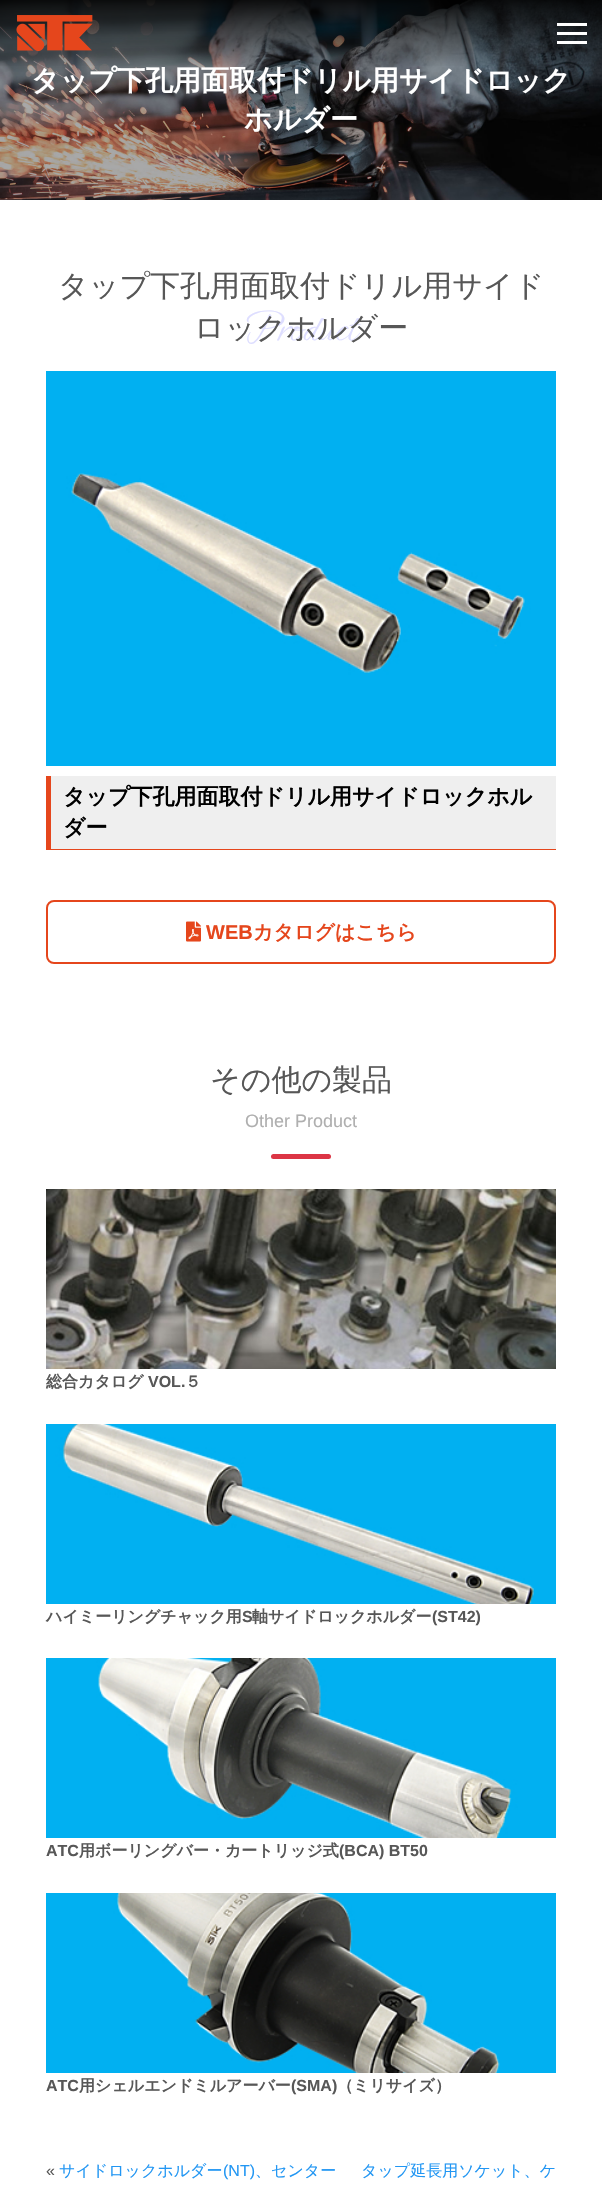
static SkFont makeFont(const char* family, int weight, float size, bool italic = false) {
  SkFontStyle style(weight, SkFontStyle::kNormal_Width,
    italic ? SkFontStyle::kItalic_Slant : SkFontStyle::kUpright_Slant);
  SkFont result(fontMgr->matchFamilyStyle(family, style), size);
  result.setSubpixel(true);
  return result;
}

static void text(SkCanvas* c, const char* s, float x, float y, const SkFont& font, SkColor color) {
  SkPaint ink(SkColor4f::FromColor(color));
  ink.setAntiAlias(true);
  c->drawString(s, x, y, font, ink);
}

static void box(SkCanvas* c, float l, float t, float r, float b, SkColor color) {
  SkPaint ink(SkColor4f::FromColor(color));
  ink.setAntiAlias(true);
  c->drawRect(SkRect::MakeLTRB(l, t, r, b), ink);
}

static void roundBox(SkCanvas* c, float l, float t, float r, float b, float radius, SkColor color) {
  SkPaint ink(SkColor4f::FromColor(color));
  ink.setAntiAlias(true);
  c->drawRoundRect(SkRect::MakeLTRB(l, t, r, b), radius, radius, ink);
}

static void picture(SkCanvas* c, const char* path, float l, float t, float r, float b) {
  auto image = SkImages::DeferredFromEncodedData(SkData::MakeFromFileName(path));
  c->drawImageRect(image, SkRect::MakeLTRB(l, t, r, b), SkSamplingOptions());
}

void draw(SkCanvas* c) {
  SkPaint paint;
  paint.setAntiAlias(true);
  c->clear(0xffffffff);
  picture(c, "img_02.png", 0, 0, 602, 200);
  {
    const SkColor colors[] = {0x00000000, 0xe6000000};
    const float stops[] = {0, 1};
    const SkPoint ends[] = {{301, 68}, {301, 0}};
    paint.setShader(SkGradientShader::MakeLinear(ends, colors, stops, 2, SkTileMode::kClamp));
    paint.setAlpha(255);
  }
  c->drawRect(SkRect::MakeLTRB(0, 0, 602, 66), paint);
  picture(c, "img_01.png", 16, 15, 93, 51);
  box(c, 557, 23, 587, 26, 0xffffffff);
  box(c, 557, 32, 587, 35, 0xffffffff);
  box(c, 557, 41, 587, 44, 0xffffffff);
  SkFont face1 = makeFont("WenQuanYi Zen Hei", 700, 28);
  text(c, "タップ下孔用面取付ドリル用サイドロック", 31, 90, face1, 0xffffffff);
  text(c, "ホルダー", 244, 129, face1, 0xffffffff);
  SkFont face2 = makeFont("WenQuanYi Zen Hei", 500, 30);
  text(c, "タップ下孔用面取付ドリル用サイド", 58, 296, face2, 0xff575757);
  SkFont face3 = makeFont("Ephesis", 400, 44);
  text(c, "Product", 245, 340, face3, 0xffdedeff);
  text(c, "ロックホルダー", 194, 338, face2, 0xff575757);
  picture(c, "img_03.png", 46, 371, 556, 766);
  box(c, 51, 776, 556, 849, 0xffefefef);
  box(c, 46, 849, 556, 850, 0xffe5461c);
  box(c, 46, 776, 51, 850, 0xffe5461c);
  SkFont face4 = makeFont("WenQuanYi Zen Hei", 700, 22);
  text(c, "タップ下孔用面取付ドリル用サイドロックホル", 63, 804, face4, 0xff000000);
  text(c, "ダー", 63, 835, face4, 0xff000000);
  paint.setStyle(SkPaint::kStroke_Style);
  paint.setStrokeWidth(2);
  paint.setShader(nullptr);
  paint.setColor(0xffe5461c);
  c->drawRoundRect(SkRect::MakeLTRB(47, 901, 555, 963), 7, 7, paint);
  picture(c, "img_04.png", 186, 921, 201, 942);
  SkFont face5 = makeFont("Liberation Sans", 700, 20);
  text(c, "WEB", 206, 939, face5, 0xffe5461c);
  SkFont face6 = makeFont("WenQuanYi Zen Hei", 700, 20);
  text(c, "カタログはこちら", 253, 939, face6, 0xffe5461c);
  text(c, "その他の製品", 210, 1090, face2, 0xff575757);
  SkFont face7 = makeFont("Liberation Sans", 400, 18);
  text(c, "Other Product", 245, 1127, face7, 0xffafafaf);
  roundBox(c, 271, 1154, 331, 1159, 2.5f, 0xffdc3545);
  picture(c, "img_05.png", 46, 1189, 556, 1369);
  SkFont face8 = makeFont("WenQuanYi Zen Hei", 700, 16);
  text(c, "総合カタログ", 46, 1387, face8, 0xff575757);
  SkFont face9 = makeFont("Liberation Sans", 700, 16);
  text(c, "VOL.", 148, 1387, face9, 0xff575757);
  text(c, "５", 185, 1387, face8, 0xff575757);
  picture(c, "img_06.png", 46, 1424, 556, 1604);
  text(c, "ハイミーリングチャック用", 46, 1622, face8, 0xff575757);
  text(c, "S", 242, 1622, face9, 0xff575757);
  text(c, "軸サイドロックホルダー", 252, 1622, face8, 0xff575757);
  text(c, "(ST42)", 432, 1622, face9, 0xff575757);
  picture(c, "img_07.png", 46, 1658, 556, 1838);
  text(c, "ATC", 46, 1856, face9, 0xff575757);
  text(c, "用ボーリングバー・カートリッジ式", 79, 1856, face8, 0xff575757);
  text(c, "(BCA) BT50", 339, 1856, face9, 0xff575757);
  picture(c, "img_08.png", 46, 1893, 556, 2073);
  text(c, "ATC", 46, 2091, face9, 0xff575757);
  text(c, "用シェルエンドミルアーバー", 79, 2091, face8, 0xff575757);
  text(c, "(SMA)", 291, 2091, face9, 0xff575757);
  text(c, "（ミリサイズ）", 337, 2091, face8, 0xff575757);
  SkFont face10 = makeFont("Liberation Sans", 400, 16);
  text(c, "«", 46, 2176, face10, 0xff575757);
  SkFont face11 = makeFont("WenQuanYi Zen Hei", 500, 16);
  text(c, "サイドロックホルダー", 59, 2176, face11, 0xff2196f3);
  text(c, "(NT)", 223, 2176, face10, 0xff2196f3);
  text(c, "、センター", 255, 2176, face11, 0xff2196f3);
  text(c, "タップ延長用ソケット、ケ", 361, 2176, face11, 0xff2196f3);
}
